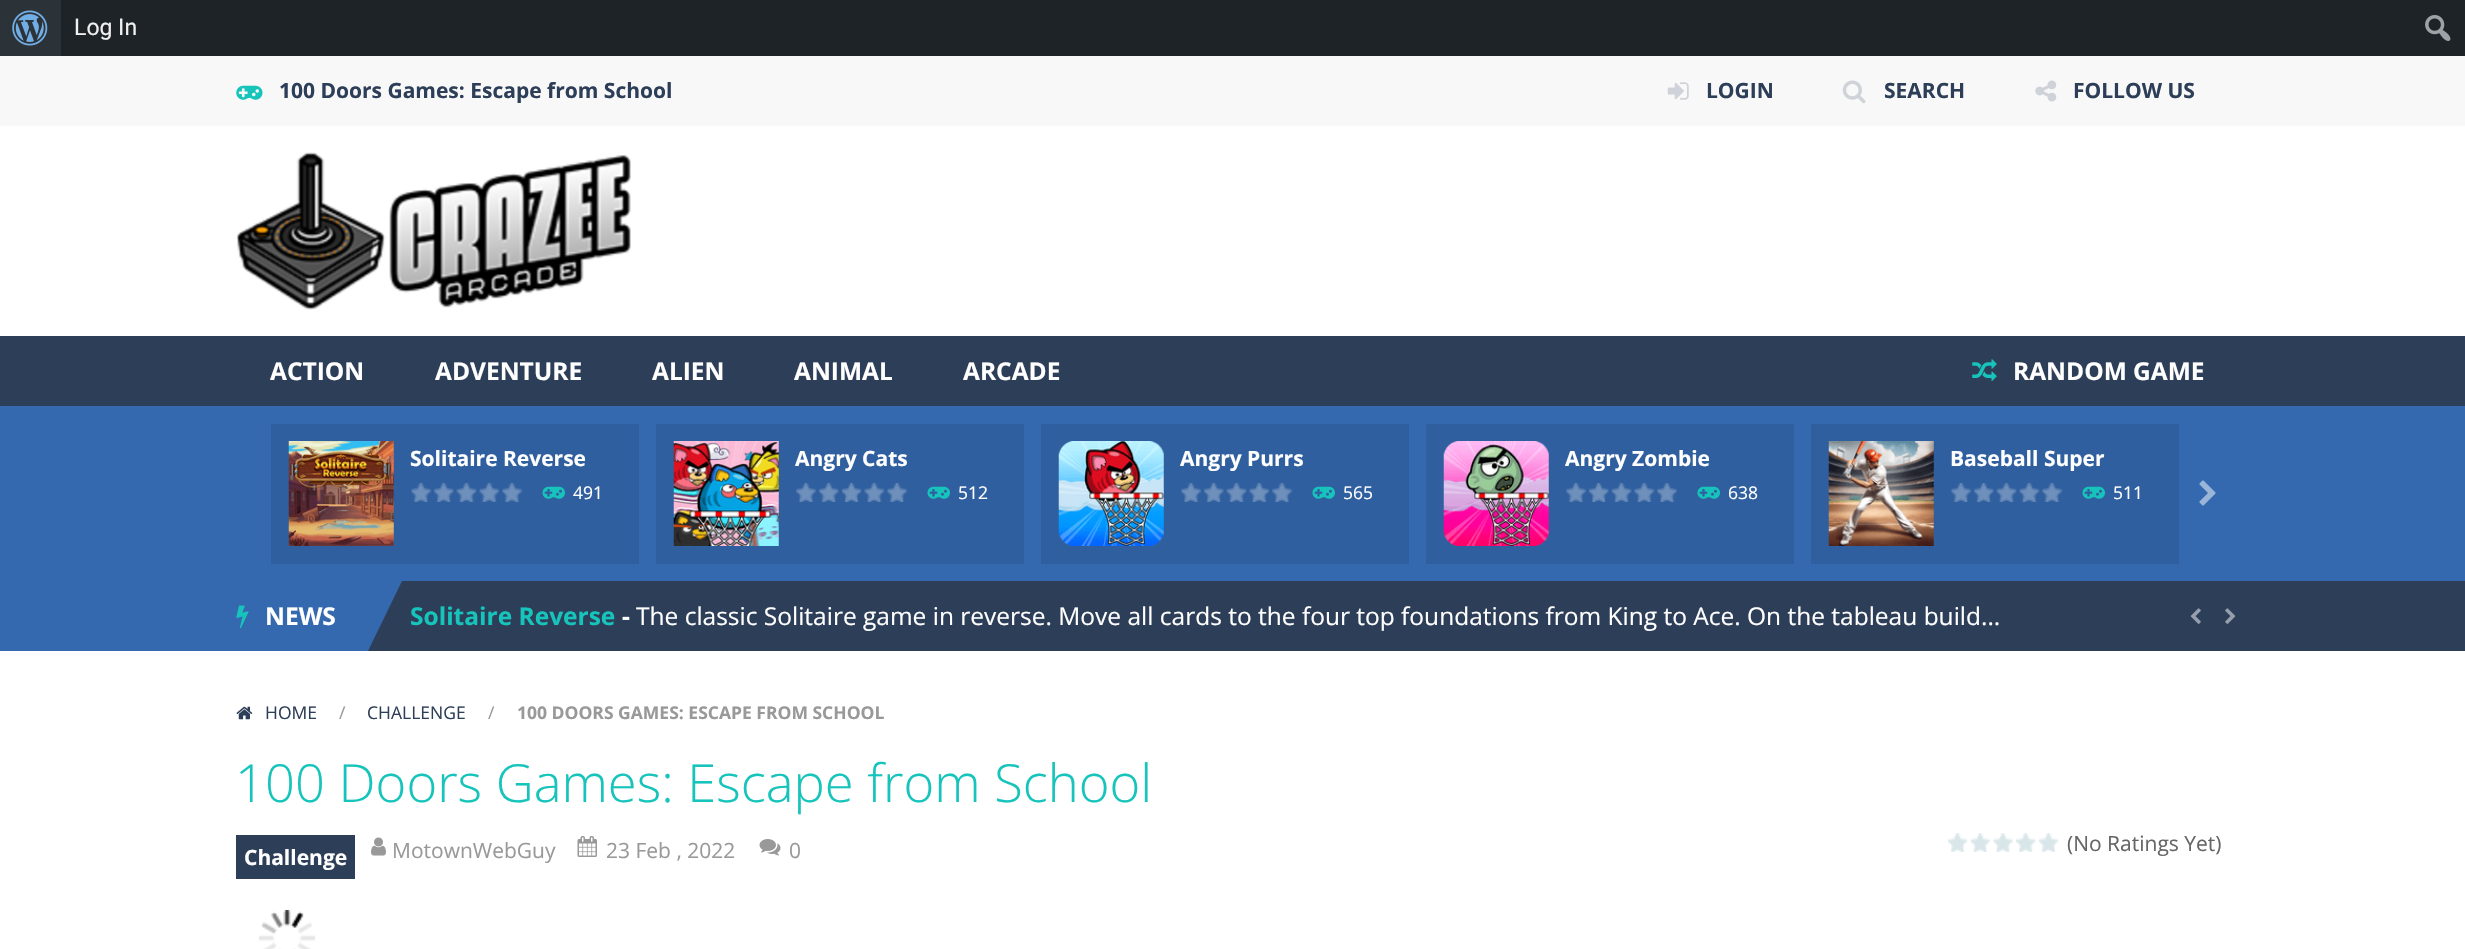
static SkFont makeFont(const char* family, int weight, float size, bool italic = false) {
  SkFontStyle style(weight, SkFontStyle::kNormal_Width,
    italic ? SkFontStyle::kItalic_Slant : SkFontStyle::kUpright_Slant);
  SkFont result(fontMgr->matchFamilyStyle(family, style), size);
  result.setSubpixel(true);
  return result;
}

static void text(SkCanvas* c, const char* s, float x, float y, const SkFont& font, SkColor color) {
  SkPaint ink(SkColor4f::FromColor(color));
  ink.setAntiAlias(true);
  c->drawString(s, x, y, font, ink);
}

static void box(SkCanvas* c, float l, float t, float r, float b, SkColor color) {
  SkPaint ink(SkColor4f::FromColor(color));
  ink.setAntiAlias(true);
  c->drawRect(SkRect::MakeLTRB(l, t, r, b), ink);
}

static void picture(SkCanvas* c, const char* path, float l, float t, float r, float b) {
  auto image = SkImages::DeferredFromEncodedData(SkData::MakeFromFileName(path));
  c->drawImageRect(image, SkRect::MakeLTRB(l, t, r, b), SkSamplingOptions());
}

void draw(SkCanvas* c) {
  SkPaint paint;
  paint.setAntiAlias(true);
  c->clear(0xffffffff);
  box(c, 61, 0, 2465, 56, 0xff1d2327);
  box(c, 0, 0, 61, 56, 0xff2c3338);
  picture(c, "img_01.png", 12, 10, 48, 46);
  SkFont face1 = makeFont("Roboto", 400, 23);
  text(c, "Log In", 74, 35, face1, 0xfff0f0f1);
  picture(c, "img_02.png", 2425, 15, 2451, 41);
  box(c, 0, 56, 2465, 126, 0xfff8f8f8);
  picture(c, "img_03.png", 236, 85, 263, 100);
  SkFont face2 = makeFont("Open Sans", 700, 21);
  text(c, "100 Doors Games: Escape from School", 279, 98, face2, 0xff2d3e58);
  picture(c, "img_04.png", 1667, 82, 1689, 100);
  text(c, "LOGIN", 1706, 98, face2, 0xff2d3e58);
  picture(c, "img_05.png", 1842, 80, 1866, 104);
  text(c, "SEARCH", 1884, 98, face2, 0xff2d3e58);
  picture(c, "img_06.png", 2035, 80, 2057, 102);
  text(c, "FOLLOW US", 2073, 98, face2, 0xff2d3e58);
  picture(c, "img_07.png", 236, 152, 631, 310);
  box(c, 0, 336, 2465, 406, 0xff2d3e58);
  SkFont face3 = makeFont("Open Sans", 700, 24.5f);
  text(c, "ACTION", 270, 380, face3, 0xffffffff);
  text(c, "ADVENTURE", 435, 380, face3, 0xffffffff);
  text(c, "ALIEN", 652, 380, face3, 0xffffffff);
  text(c, "ANIMAL", 794, 380, face3, 0xffffffff);
  text(c, "ARCADE", 963, 380, face3, 0xffffffff);
  picture(c, "img_08.png", 1972, 359, 1997, 381);
  text(c, "RANDOM GAME", 2013, 380, face3, 0xffffffff);
  box(c, 0, 406, 2465, 581, 0xff3469af);
  box(c, 271, 424, 639, 564, 0xff2f5f9e);
  picture(c, "img_09.png", 288, 441, 394, 546);
  text(c, "Solitaire Reverse", 410, 466, face2, 0xffffffff);
  picture(c, "img_10.png", 411, 483, 432, 502);
  picture(c, "img_11.png", 434, 483, 454, 502);
  picture(c, "img_12.png", 456, 483, 477, 502);
  picture(c, "img_13.png", 479, 483, 500, 502);
  picture(c, "img_14.png", 502, 483, 523, 502);
  picture(c, "img_15.png", 542, 486, 565, 499);
  SkFont face4 = makeFont("Open Sans", 400, 17.5f);
  text(c, "491", 573, 499, face4, 0xffffffff);
  box(c, 656, 424, 1024, 564, 0xff2f5f9e);
  picture(c, "img_16.png", 673, 441, 779, 546);
  text(c, "Angry Cats", 795, 466, face2, 0xffffffff);
  picture(c, "img_17.png", 796, 483, 816, 502);
  picture(c, "img_18.png", 818, 483, 839, 502);
  picture(c, "img_19.png", 842, 483, 862, 502);
  picture(c, "img_13.png", 864, 483, 885, 502);
  picture(c, "img_10.png", 887, 483, 908, 502);
  picture(c, "img_20.png", 927, 486, 950, 499);
  text(c, "512", 958, 499, face4, 0xffffffff);
  box(c, 1041, 424, 1409, 564, 0xff2f5f9e);
  picture(c, "img_21.png", 1058, 441, 1164, 546);
  text(c, "Angry Purrs", 1180, 466, face2, 0xffffffff);
  picture(c, "img_14.png", 1181, 483, 1202, 502);
  picture(c, "img_22.png", 1204, 483, 1224, 502);
  picture(c, "img_12.png", 1226, 483, 1247, 502);
  picture(c, "img_13.png", 1249, 483, 1270, 502);
  picture(c, "img_10.png", 1272, 483, 1293, 502);
  picture(c, "img_15.png", 1312, 486, 1335, 499);
  text(c, "565", 1343, 499, face4, 0xffffffff);
  box(c, 1426, 424, 1794, 564, 0xff2f5f9e);
  picture(c, "img_23.png", 1443, 441, 1549, 546);
  text(c, "Angry Zombie", 1565, 466, face2, 0xffffffff);
  picture(c, "img_10.png", 1566, 483, 1587, 502);
  picture(c, "img_24.png", 1589, 483, 1609, 502);
  picture(c, "img_25.png", 1611, 483, 1632, 502);
  picture(c, "img_26.png", 1634, 483, 1655, 502);
  picture(c, "img_17.png", 1657, 483, 1677, 502);
  picture(c, "img_15.png", 1697, 486, 1720, 499);
  text(c, "638", 1728, 499, face4, 0xffffffff);
  box(c, 1811, 424, 2179, 564, 0xff2f5f9e);
  picture(c, "img_27.png", 1828, 441, 1934, 546);
  text(c, "Baseball Super", 1950, 466, face2, 0xffffffff);
  picture(c, "img_10.png", 1951, 483, 1972, 502);
  picture(c, "img_11.png", 1974, 483, 1994, 502);
  picture(c, "img_28.png", 1996, 483, 2017, 502);
  picture(c, "img_29.png", 2019, 483, 2040, 502);
  picture(c, "img_10.png", 2042, 483, 2063, 502);
  picture(c, "img_15.png", 2082, 486, 2105, 499);
  text(c, "511", 2113, 499, face4, 0xffffffff);
  picture(c, "img_30.png", 2199, 480, 2216, 506);
  box(c, 368, 581, 2465, 651, 0xff2d3e58);
  box(c, 0, 581, 368, 651, 0xff3469af);
  text(c, "Solitaire Reverse", 410, 625, face3, 0xff16c4bb);
  text(c, "-", 622, 625, face3, 0xffffffff);
  SkFont face5 = makeFont("Open Sans", 400, 24.5f);
  text(c, "The classic Solitaire game in reverse. Move all cards to the four top foundations from King to Ace. On the tableau build...", 636, 625, face5, 0xffffffff);
  picture(c, "img_31.png", 2190, 608, 2201, 624);
  picture(c, "img_32.png", 2225, 608, 2236, 624);
  picture(c, "img_33.png", 236, 605, 249, 629);
  text(c, "NEWS", 265, 625, face3, 0xffffffff);
  paint.setColor(0xff3469af);
  c->drawPath(SkPathBuilder().moveTo(368, 581).lineTo(402, 581).lineTo(368, 651).close().detach(), paint);
  picture(c, "img_34.png", 236, 706, 253, 720);
  text(c, "HOME", 265, 719, face4, 0xff2d3e58);
  text(c, "/", 339, 719, face4, 0xff999999);
  text(c, "CHALLENGE", 367, 719, face4, 0xff2d3e58);
  text(c, "/", 488, 719, face4, 0xff999999);
  SkFont face6 = makeFont("Open Sans", 700, 17.5f);
  text(c, "100 DOORS GAMES: ESCAPE FROM SCHOOL", 517, 719, face6, 0xff999999);
  SkFont face7 = makeFont("Open Sans", 300, 52.5f);
  text(c, "100 Doors Games: Escape from School", 235, 802, face7, 0xff16c4bb);
  box(c, 236, 835, 355, 879, 0xff2d3e58);
  text(c, "Challenge", 244, 865, face2, 0xffffffff);
  picture(c, "img_35.png", 371, 837, 386, 856);
  SkFont face8 = makeFont("Open Sans", 400, 21);
  text(c, "MotownWebGuy", 392, 858, face8, 0xff999999);
  picture(c, "img_36.png", 577, 836, 597, 857);
  text(c, "23 Feb , 2022", 606, 858, face8, 0xff999999);
  picture(c, "img_37.png", 759, 839, 781, 856);
  text(c, "0", 789, 858, face8, 0xff999999);
  picture(c, "img_38.png", 1948, 833, 1968, 852);
  picture(c, "img_39.png", 1970, 833, 1991, 852);
  picture(c, "img_40.png", 1993, 833, 2013, 852);
  picture(c, "img_41.png", 2016, 833, 2036, 852);
  picture(c, "img_42.png", 2039, 833, 2059, 852);
  text(c, "(No Ratings Yet)", 2067, 851, face8, 0xff666666);
  picture(c, "img_43.png", 259, 910, 315, 949);
}
